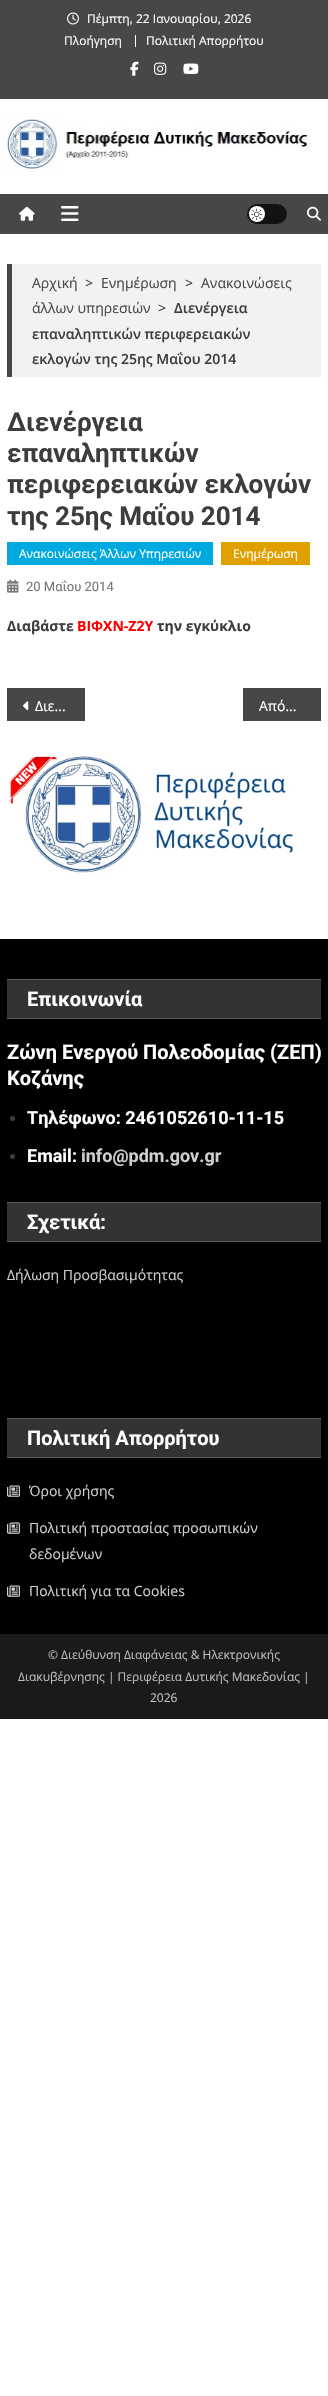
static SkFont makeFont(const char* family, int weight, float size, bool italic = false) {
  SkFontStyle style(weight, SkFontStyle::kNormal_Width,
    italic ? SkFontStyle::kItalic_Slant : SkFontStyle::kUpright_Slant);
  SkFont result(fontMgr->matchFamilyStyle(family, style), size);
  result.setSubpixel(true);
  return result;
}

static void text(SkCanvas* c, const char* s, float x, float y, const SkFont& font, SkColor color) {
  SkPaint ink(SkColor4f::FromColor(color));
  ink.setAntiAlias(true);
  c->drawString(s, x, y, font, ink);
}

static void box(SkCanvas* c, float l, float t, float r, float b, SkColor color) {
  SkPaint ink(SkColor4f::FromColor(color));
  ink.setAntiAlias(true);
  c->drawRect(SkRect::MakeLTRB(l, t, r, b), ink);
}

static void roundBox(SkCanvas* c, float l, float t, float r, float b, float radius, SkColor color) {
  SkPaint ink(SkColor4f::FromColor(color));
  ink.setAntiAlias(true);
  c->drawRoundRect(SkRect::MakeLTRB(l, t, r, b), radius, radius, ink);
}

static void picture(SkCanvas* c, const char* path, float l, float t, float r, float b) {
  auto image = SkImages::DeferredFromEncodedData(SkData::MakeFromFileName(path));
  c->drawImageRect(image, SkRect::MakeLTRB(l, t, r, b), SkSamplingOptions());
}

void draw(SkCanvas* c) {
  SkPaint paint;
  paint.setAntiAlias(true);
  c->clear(0xffffffff);
  box(c, 0, 0, 328, 99, 0xff474747);
  picture(c, "img_01.png", 67, 12, 79, 25);
  SkFont face1 = makeFont("Open Sans", 400, 12);
  text(c, "Πέμπτη, 22 Ιανουαρίου, 2026", 87, 23, face1, 0xffffffff);
  text(c, "Πλοήγηση", 64, 45, face1, 0xffffffff);
  box(c, 135, 35, 136, 47, 0xffffffff);
  text(c, "Πολιτική Απορρήτου", 146, 45, face1, 0xffffffff);
  picture(c, "img_02.png", 130, 61, 139, 76);
  picture(c, "img_03.png", 154, 62, 167, 75);
  picture(c, "img_04.png", 183, 63, 199, 74);
  picture(c, "img_05.png", 7, 119, 309, 169);
  box(c, 0, 194, 328, 234, 0xff474747);
  picture(c, "img_06.png", 19, 206, 35, 221);
  picture(c, "img_07.png", 61, 206, 79, 221);
  roundBox(c, 247, 204, 287, 224, 10, 0xff121212);
  paint.setColor(0xffffffff);
  c->drawCircle(257, 214, 8, paint);
  picture(c, "img_08.png", 251, 208, 263, 220);
  picture(c, "img_09.png", 307, 206, 321, 221);
  box(c, 12, 264, 321, 377, 0xfff2f2f2);
  box(c, 7, 264, 12, 377, 0xff474747);
  SkFont face2 = makeFont("Open Sans", 400, 14);
  text(c, "Αρχική", 32, 288, face2, 0xff474747);
  text(c, ">", 85, 288, face2, 0xff3d3d3d);
  text(c, "Ενημέρωση", 101, 288, face2, 0xff474747);
  text(c, ">", 185, 288, face2, 0xff3d3d3d);
  text(c, "Ανακοινώσεις", 201, 288, face2, 0xff474747);
  text(c, "άλλων υπηρεσιών", 32, 313, face2, 0xff474747);
  text(c, ">", 158, 313, face2, 0xff3d3d3d);
  SkFont face3 = makeFont("Open Sans", 600, 14);
  text(c, "Διενέργεια", 174, 313, face3, 0xff3d3d3d);
  text(c, "επαναληπτικών περιφερειακών", 32, 339, face3, 0xff3d3d3d);
  text(c, "εκλογών της 25ης Μαΐου 2014", 32, 364, face3, 0xff3d3d3d);
  SkFont face4 = makeFont("Roboto", 700, 26);
  text(c, "Διενέργεια", 7, 431, face4, 0xff3d3d3d);
  text(c, "επαναληπτικών", 7, 462, face4, 0xff3d3d3d);
  text(c, "περιφερειακών εκλογών", 7, 493, face4, 0xff3d3d3d);
  text(c, "της 25ης Μαΐου 2014", 7, 525, face4, 0xff3d3d3d);
  box(c, 7, 542, 213, 565, 0xff00a9e0);
  text(c, "Ανακοινώσεις Άλλων Υπηρεσιών", 19, 558, face1, 0xffffffff);
  box(c, 221, 542, 310, 565, 0xffe0a000);
  text(c, "Ενημέρωση", 233, 558, face1, 0xffffffff);
  picture(c, "img_10.png", 7, 579, 19, 593);
  SkFont face5 = makeFont("Roboto", 400, 13);
  text(c, "20 Μαΐου 2014", 26, 591, face5, 0xff767676);
  SkFont face6 = makeFont("Open Sans", 700, 14);
  text(c, "Διαβάστε", 7, 631, face6, 0xff3d3d3d);
  text(c, "ΒΙΦΧΝ-Ζ2Υ", 77, 631, face6, 0xffff0000);
  text(c, "την εγκύκλιο", 157, 631, face6, 0xff3d3d3d);
  box(c, 7, 688, 85, 721, 0xff474747);
  picture(c, "img_11.png", 23, 701, 29, 711);
  text(c, "Διε...", 35, 711, face2, 0xffffffff);
  box(c, 243, 688, 321, 721, 0xff474747);
  text(c, "Από...", 259, 711, face2, 0xffffffff);
  picture(c, "img_12.png", 10, 756, 294, 873);
  box(c, 0, 939, 328, 1634, 0xff000000);
  box(c, 7, 980, 321, 1018, 0xff333333);
  box(c, 7, 979, 321, 980, 0xff5c5c5c);
  box(c, 7, 1018, 321, 1019, 0xff5c5c5c);
  SkFont face7 = makeFont("Roboto", 700, 20);
  text(c, "Επικοινωνία", 27, 1006, face7, 0xffffffff);
  text(c, "Ζώνη Ενεργού Πολεοδομίας (ΖΕΠ)", 7, 1059, face7, 0xffffffff);
  text(c, "Κοζάνης", 7, 1085, face7, 0xffffffff);
  paint.setColor(0xff3d3d3d);
  c->drawCircle(12.5f, 1118.5f, 2.5f, paint);
  SkFont face8 = makeFont("Roboto", 700, 18);
  text(c, "Τηλέφωνο: 2461052610-11-15", 27, 1124, face8, 0xffffffff);
  c->drawCircle(12.5f, 1156.5f, 2.5f, paint);
  text(c, "Email:", 27, 1162, face8, 0xffffffff);
  text(c, "info@pdm.gov.gr", 81, 1162, face8, 0xffcfcfcf);
  box(c, 7, 1203, 321, 1241, 0xff333333);
  box(c, 7, 1202, 321, 1203, 0xff5c5c5c);
  box(c, 7, 1241, 321, 1242, 0xff5c5c5c);
  text(c, "Σχετικά:", 27, 1229, face7, 0xffffffff);
  text(c, "Δήλωση Προσβασιμότητας", 7, 1280, face2, 0xffcfcfcf);
  box(c, 7, 1419, 321, 1457, 0xff333333);
  box(c, 7, 1418, 321, 1419, 0xff5c5c5c);
  box(c, 7, 1457, 321, 1458, 0xff5c5c5c);
  text(c, "Πολιτική Απορρήτου", 27, 1445, face7, 0xffffffff);
  picture(c, "img_13.png", 7, 1485, 20, 1497);
  text(c, "Όροι χρήσης", 29, 1496, face2, 0xffcfcfcf);
  picture(c, "img_13.png", 7, 1522, 20, 1534);
  text(c, "Πολιτική προστασίας προσωπικών", 29, 1533, face2, 0xffcfcfcf);
  text(c, "δεδομένων", 29, 1559, face2, 0xffcfcfcf);
  picture(c, "img_13.png", 7, 1585, 20, 1597);
  text(c, "Πολιτική για τα Cookies", 29, 1596, face2, 0xffcfcfcf);
  box(c, 0, 1634, 328, 1719, 0xff1a1a1a);
  text(c, "© Διεύθυνση Διαφάνειας & Ηλεκτρονικής", 48, 1659, face1, 0xffbfbfbf);
  text(c, "Διακυβέρνησης | Περιφέρεια Δυτικής Μακεδονίας |", 18, 1681, face1, 0xffbfbfbf);
  text(c, "2026", 150, 1702, face1, 0xffbfbfbf);
}
